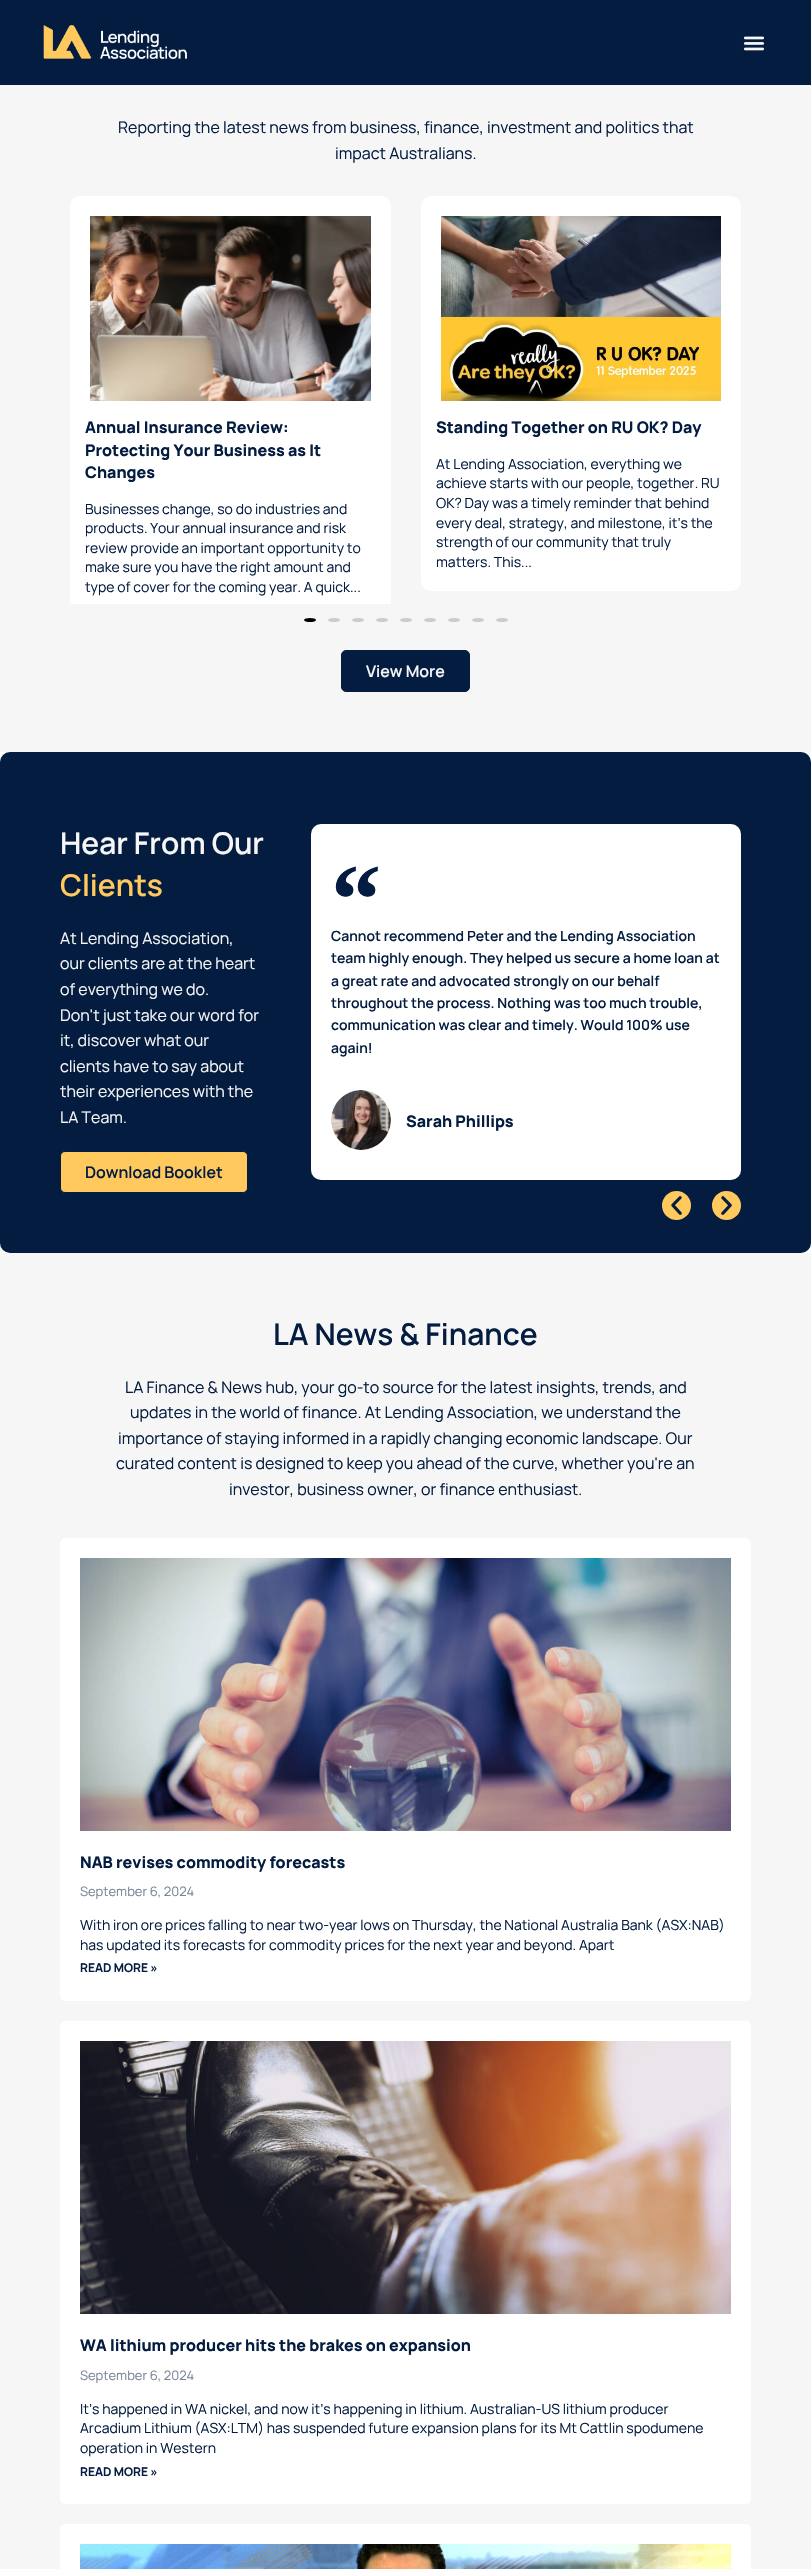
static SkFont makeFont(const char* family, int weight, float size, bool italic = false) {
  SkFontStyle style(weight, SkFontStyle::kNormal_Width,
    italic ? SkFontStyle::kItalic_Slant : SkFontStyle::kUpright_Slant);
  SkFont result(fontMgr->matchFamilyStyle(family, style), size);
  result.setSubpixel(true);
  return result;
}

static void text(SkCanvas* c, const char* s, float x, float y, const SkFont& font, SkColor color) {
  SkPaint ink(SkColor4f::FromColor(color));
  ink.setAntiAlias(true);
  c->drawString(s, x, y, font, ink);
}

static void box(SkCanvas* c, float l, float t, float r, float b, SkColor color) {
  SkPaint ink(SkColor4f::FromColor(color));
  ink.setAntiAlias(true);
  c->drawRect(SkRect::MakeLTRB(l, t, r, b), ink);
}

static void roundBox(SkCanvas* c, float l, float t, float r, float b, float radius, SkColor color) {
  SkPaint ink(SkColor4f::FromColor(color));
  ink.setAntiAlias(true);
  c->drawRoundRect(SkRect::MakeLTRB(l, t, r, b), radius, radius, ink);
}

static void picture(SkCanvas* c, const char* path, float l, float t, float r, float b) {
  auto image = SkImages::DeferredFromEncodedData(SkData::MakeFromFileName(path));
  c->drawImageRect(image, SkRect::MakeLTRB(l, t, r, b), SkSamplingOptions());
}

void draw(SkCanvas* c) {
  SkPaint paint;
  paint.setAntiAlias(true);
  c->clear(0xffffffff);
  box(c, 0, 0, 811, 85, 0xff031c40);
  picture(c, "img_01.png", 43, 25, 187, 59);
  picture(c, "img_02.png", 743, 36, 765, 51);
  box(c, 0, 85, 811, 752, 0xfff6f6f6);
  SkFont face1 = makeFont("Manrope", 400, 16);
  text(c, "Reporting the latest news from business, finance, investment and politics that", 118, 133, face1, 0xff031c40);
  text(c, "impact Australians.", 335, 159, face1, 0xff031c40);
  paint.setColor(0xffffffff);
  c->drawPath(SkPathBuilder().moveTo(80, 196).lineTo(381, 196).cubicTo(386.5f, 196, 391, 200.5f, 391, 206).lineTo(391, 604).lineTo(70, 604).lineTo(70, 206).cubicTo(70, 200.5f, 74.5f, 196, 80, 196).close().detach(), paint);
  picture(c, "img_03.png", 90, 216, 371, 401);
  SkFont face2 = makeFont("Manrope", 800, 16);
  text(c, "Annual Insurance Review:", 85, 433, face2, 0xff031c40);
  text(c, "Protecting Your Business as It", 85, 456, face2, 0xff031c40);
  text(c, "Changes", 85, 478, face2, 0xff031c40);
  SkFont face3 = makeFont("Manrope", 400, 14);
  text(c, "Businesses change, so do industries and", 85, 514, face3, 0xff031c40);
  text(c, "products. Your annual insurance and risk", 85, 533, face3, 0xff031c40);
  text(c, "review provide an important opportunity to", 85, 553, face3, 0xff031c40);
  text(c, "make sure you have the right amount and", 85, 572, face3, 0xff031c40);
  text(c, "type of cover for the coming year. A quick...", 85, 592, face3, 0xff031c40);
  roundBox(c, 421, 196, 741, 591, 10, 0xffffffff);
  picture(c, "img_04.png", 441, 216, 721, 401);
  text(c, "Standing Together on RU OK? Day", 436, 433, face2, 0xff031c40);
  text(c, "At Lending Association, everything we", 436, 469, face3, 0xff031c40);
  text(c, "achieve starts with our people, together. RU", 436, 488, face3, 0xff031c40);
  text(c, "OK? Day was a timely reminder that behind", 436, 508, face3, 0xff031c40);
  text(c, "every deal, strategy, and milestone, it’s the", 436, 528, face3, 0xff031c40);
  text(c, "strength of our community that truly", 436, 547, face3, 0xff031c40);
  text(c, "matters. This...", 436, 567, face3, 0xff031c40);
  paint.setColor(0xff000000);
  c->drawOval(SkRect::MakeLTRB(304, 618, 316, 622), paint);
  paint.setColor(0xffcccccc);
  c->drawOval(SkRect::MakeLTRB(328, 618, 340, 622), paint);
  c->drawOval(SkRect::MakeLTRB(352, 618, 364, 622), paint);
  c->drawOval(SkRect::MakeLTRB(376, 618, 388, 622), paint);
  c->drawOval(SkRect::MakeLTRB(400, 618, 412, 622), paint);
  c->drawOval(SkRect::MakeLTRB(424, 618, 436, 622), paint);
  c->drawOval(SkRect::MakeLTRB(448, 618, 460, 622), paint);
  c->drawOval(SkRect::MakeLTRB(472, 618, 484, 622), paint);
  c->drawOval(SkRect::MakeLTRB(496, 618, 508, 622), paint);
  paint.setColor(0xff031c40);
  c->drawRoundRect(SkRect::MakeLTRB(341.5f, 650.5f, 469.5f, 691.5f), 4.5f, 4.5f, paint);
  paint.setStyle(SkPaint::kStroke_Style);
  paint.setStrokeWidth(1);
  c->drawRoundRect(SkRect::MakeLTRB(341.5f, 650.5f, 469.5f, 691.5f), 4.5f, 4.5f, paint);
  SkFont face4 = makeFont("Manrope", 600, 16);
  text(c, "View More", 366, 677, face4, 0xfff6f6f6);
  roundBox(c, 0, 752, 811, 1253, 10, 0xff031c40);
  SkFont face5 = makeFont("Manrope", 600, 30);
  text(c, "Hear From Our", 60, 854, face5, 0xfff6f6f6);
  text(c, "Clients", 60, 896, face5, 0xffffc95e);
  text(c, "At Lending Association,", 60, 944, face1, 0xfff6f6f6);
  text(c, "our clients are at the heart", 60, 969, face1, 0xfff6f6f6);
  text(c, "of everything we do.", 60, 995, face1, 0xfff6f6f6);
  text(c, "Don't just take our word for", 60, 1021, face1, 0xfff6f6f6);
  text(c, "it, discover what our", 60, 1046, face1, 0xfff6f6f6);
  text(c, "clients have to say about", 60, 1072, face1, 0xfff6f6f6);
  text(c, "their experiences with the", 60, 1097, face1, 0xfff6f6f6);
  text(c, "LA Team.", 60, 1123, face1, 0xfff6f6f6);
  paint.setStyle(SkPaint::kFill_Style);
  paint.setColor(0xffffc95e);
  c->drawRoundRect(SkRect::MakeLTRB(60.5f, 1151.5f, 247.5f, 1192.5f), 4.5f, 4.5f, paint);
  paint.setStyle(SkPaint::kStroke_Style);
  paint.setColor(0xff031c40);
  c->drawRoundRect(SkRect::MakeLTRB(60.5f, 1151.5f, 247.5f, 1192.5f), 4.5f, 4.5f, paint);
  text(c, "Download Booklet", 85, 1178, face4, 0xff031c40);
  roundBox(c, 311, 824, 741, 1180, 10, 0xffffffff);
  SkFont face6 = makeFont("Liberation Serif", 700, 100);
  text(c, "“", 331, 933, face6, 0xff031c40);
  SkFont face7 = makeFont("Manrope", 600, 14);
  text(c, "Cannot recommend Peter and the Lending Association", 331, 941, face7, 0xff031c40);
  text(c, "team highly enough. They helped us secure a home loan at", 331, 963, face7, 0xff031c40);
  text(c, "a great rate and advocated strongly on our behalf", 331, 986, face7, 0xff031c40);
  text(c, "throughout the process. Nothing was too much trouble,", 331, 1008, face7, 0xff031c40);
  text(c, "communication was clear and timely. Would 100% use", 331, 1030, face7, 0xff031c40);
  text(c, "again!", 331, 1053, face7, 0xff031c40);
  picture(c, "img_05.png", 331, 1090, 391, 1150);
  text(c, "Sarah Phillips", 406, 1127, face2, 0xff031c40);
  paint.setStyle(SkPaint::kFill_Style);
  paint.setColor(0xffffc95e);
  c->drawCircle(676.5f, 1205.5f, 14.5f, paint);
  picture(c, "img_06.png", 671, 1196, 682, 1215);
  c->drawCircle(726.5f, 1205.5f, 14.5f, paint);
  picture(c, "img_07.png", 721, 1196, 732, 1215);
  box(c, 0, 1253, 811, 2569, 0xfff6f6f6);
  text(c, "LA News & Finance", 273, 1345, face5, 0xff031c40);
  text(c, "LA Finance & News hub, your go-to source for the latest insights, trends, and", 125, 1393, face1, 0xff031c40);
  text(c, "updates in the world of finance. At Lending Association, we understand the", 130, 1418, face1, 0xff031c40);
  text(c, "importance of staying informed in a rapidly changing economic landscape. Our", 118, 1444, face1, 0xff031c40);
  text(c, "curated content is designed to keep you ahead of the curve, whether you're an", 116, 1469, face1, 0xff031c40);
  text(c, "investor, business owner, or finance enthusiast.", 229, 1495, face1, 0xff031c40);
  roundBox(c, 60, 1538, 751, 2001, 5, 0xffffffff);
  picture(c, "img_08.png", 80, 1558, 731, 1831);
  text(c, "NAB revises commodity forecasts", 80, 1868, face2, 0xff031c40);
  SkFont face8 = makeFont("Manrope", 400, 13);
  text(c, "September 6, 2024", 80, 1896, face8, 0xff798699);
  text(c, "With iron ore prices falling to near two-year lows on Thursday, the National Australia Bank (ASX:NAB)", 80, 1930, face3, 0xff031c40);
  text(c, "has updated its forecasts for commodity prices for the next year and beyond. Apart", 80, 1950, face3, 0xff031c40);
  SkFont face9 = makeFont("Manrope", 700, 12);
  text(c, "READ MORE »", 80, 1972, face9, 0xff031c40);
  roundBox(c, 60, 2021, 751, 2504, 5, 0xffffffff);
  picture(c, "img_09.png", 80, 2041, 731, 2314);
  text(c, "WA lithium producer hits the brakes on expansion", 80, 2351, face2, 0xff031c40);
  text(c, "September 6, 2024", 80, 2380, face8, 0xff798699);
  text(c, "It’s happened in WA nickel, and now it’s happening in lithium. Australian-US lithium producer", 80, 2414, face3, 0xff031c40);
  text(c, "Arcadium Lithium (ASX:LTM) has suspended future expansion plans for its Mt Cattlin spodumene", 80, 2433, face3, 0xff031c40);
  text(c, "operation in Western", 80, 2453, face3, 0xff031c40);
  text(c, "READ MORE »", 80, 2476, face9, 0xff031c40);
  roundBox(c, 60, 2524, 751, 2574, 5, 0xffffffff);
  picture(c, "img_10.png", 80, 2544, 731, 2569);
}
